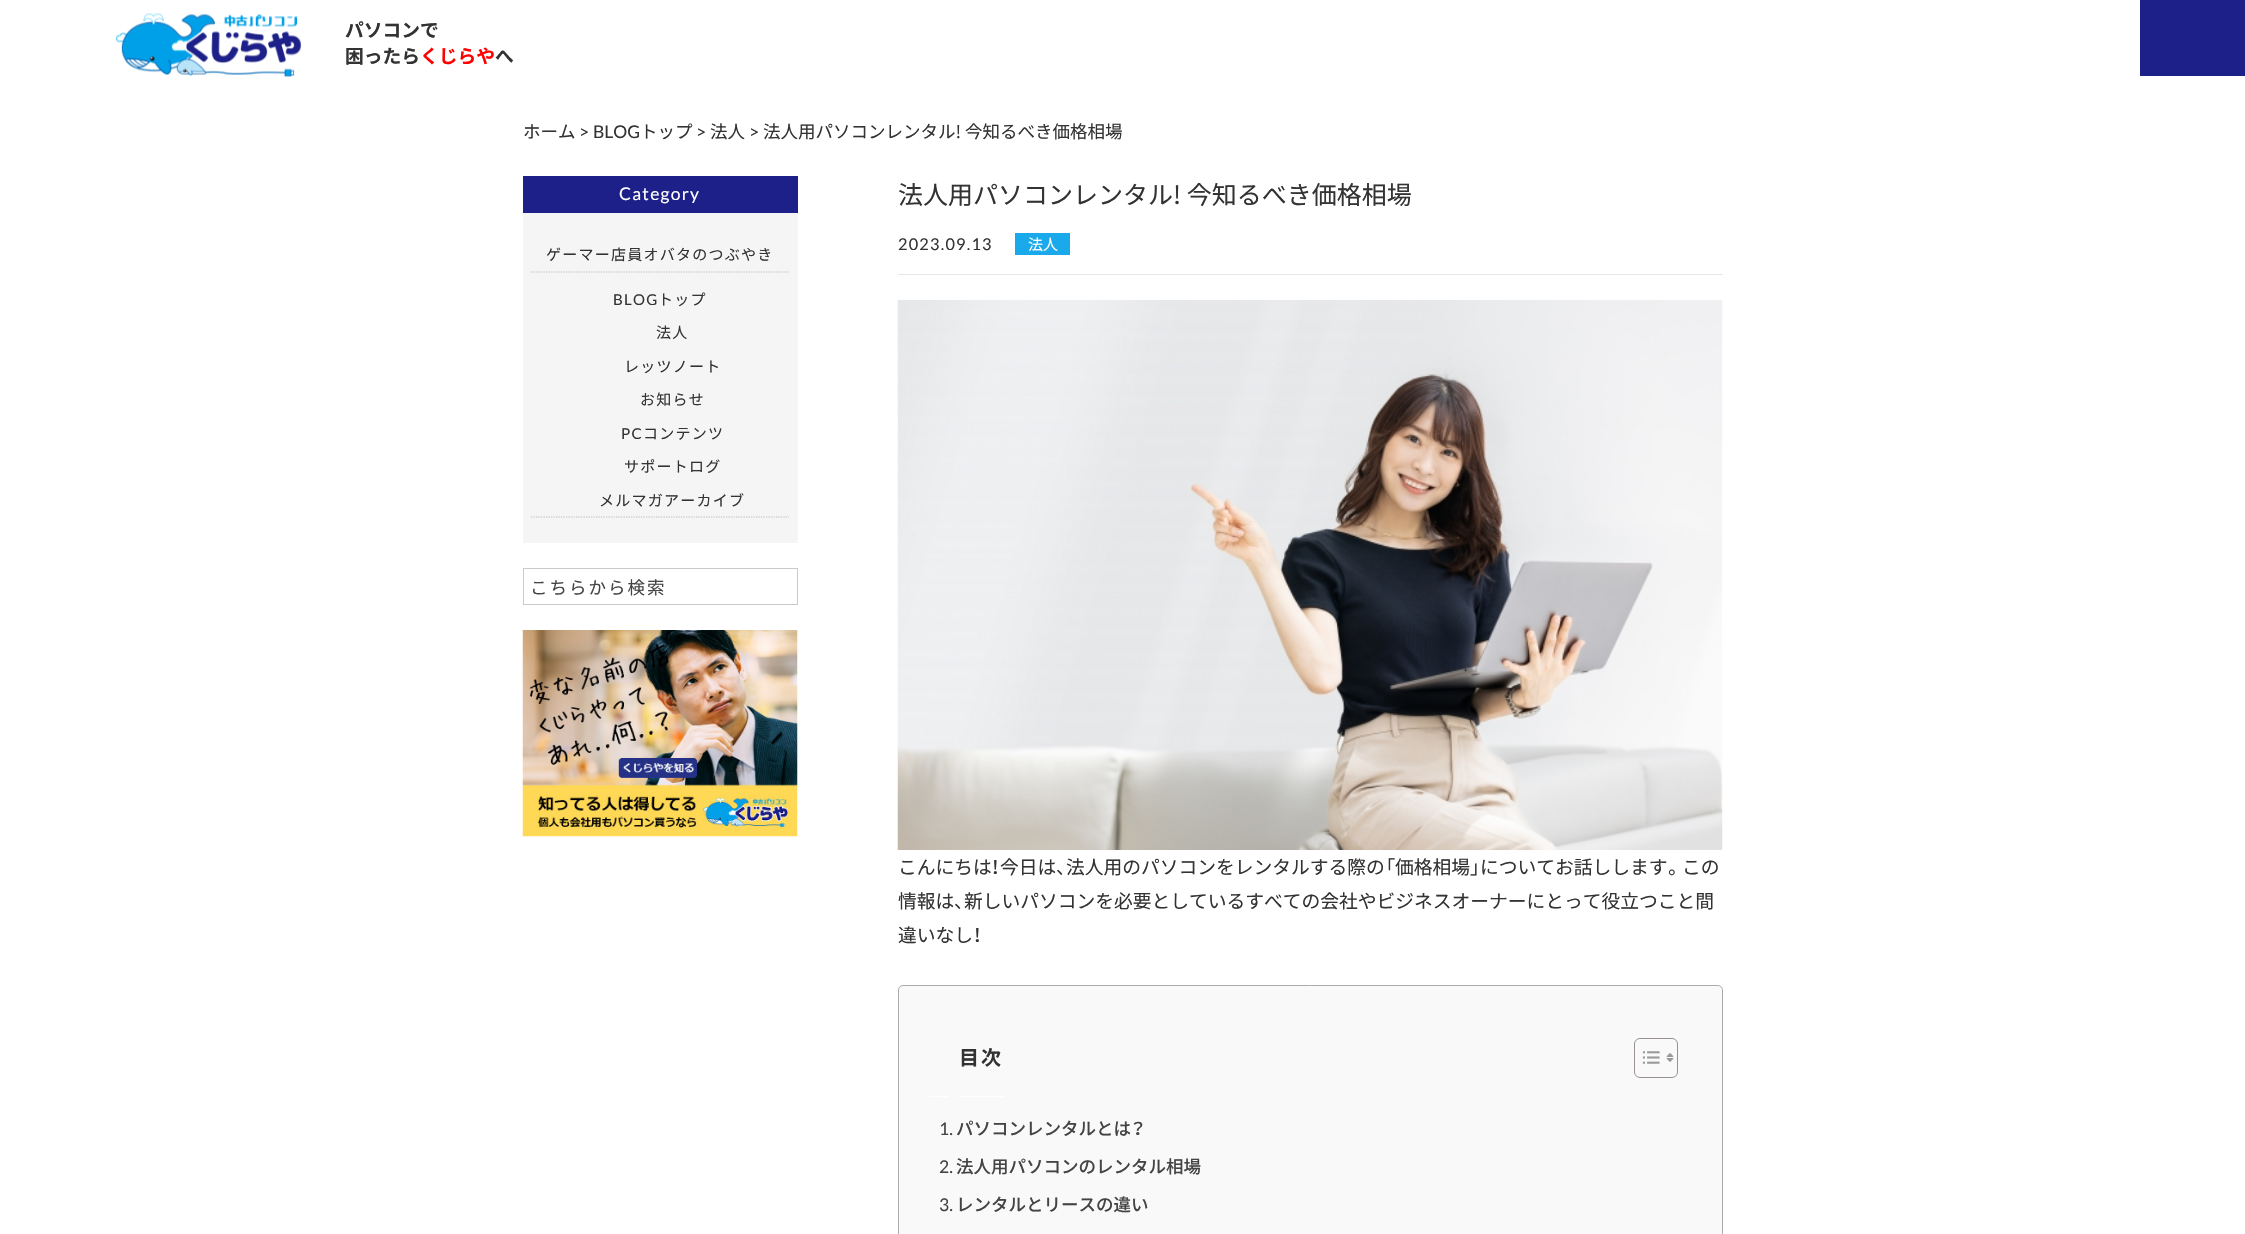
static SkFont makeFont(const char* family, int weight, float size, bool italic = false) {
  SkFontStyle style(weight, SkFontStyle::kNormal_Width,
    italic ? SkFontStyle::kItalic_Slant : SkFontStyle::kUpright_Slant);
  SkFont result(fontMgr->matchFamilyStyle(family, style), size);
  result.setSubpixel(true);
  return result;
}

static void text(SkCanvas* c, const char* s, float x, float y, const SkFont& font, SkColor color) {
  SkPaint ink(SkColor4f::FromColor(color));
  ink.setAntiAlias(true);
  c->drawString(s, x, y, font, ink);
}

static void spacedText(SkCanvas* c, const char* s, float x, float y, const SkFont& font, const SkPaint& ink, float letter, float word) {
  std::vector<SkGlyphID> glyphs(font.countText(s, strlen(s), SkTextEncoding::kUTF8));
  std::vector<float> xs(glyphs.size());
  font.textToGlyphs(s, strlen(s), SkTextEncoding::kUTF8, glyphs);
  font.getXPos(glyphs, xs, x);
  float extra = 0;
  for (size_t i = 0; i < glyphs.size(); i++) {
    xs[i] += extra;
    extra += letter + word * (glyphs[i] == font.unicharToGlyph(' '));
  }
  c->drawTextBlob(SkTextBlob::MakeFromPosHGlyphs(glyphs, xs, y, font), 0, 0, ink);
}

static void box(SkCanvas* c, float l, float t, float r, float b, SkColor color) {
  SkPaint ink(SkColor4f::FromColor(color));
  ink.setAntiAlias(true);
  c->drawRect(SkRect::MakeLTRB(l, t, r, b), ink);
}

static void picture(SkCanvas* c, const char* path, float l, float t, float r, float b) {
  auto image = SkImages::DeferredFromEncodedData(SkData::MakeFromFileName(path));
  c->drawImageRect(image, SkRect::MakeLTRB(l, t, r, b), SkSamplingOptions());
}

void draw(SkCanvas* c) {
  SkPaint paint;
  paint.setAntiAlias(true);
  c->clear(0xffffffff);
  picture(c, "img_01.png", 116, 13, 302, 77);
  SkFont face1 = makeFont("Noto Sans JP", 700, 18.75f);
  text(c, "パソコンで", 345, 37, face1, 0xff333333);
  text(c, "困ったら", 345, 63, face1, 0xff333333);
  text(c, "くじらや", 420, 63, face1, 0xffff0000);
  text(c, "へ", 495, 63, face1, 0xff333333);
  box(c, 2140, 0, 2245, 76, 0xff1d2088);
  SkFont face2 = makeFont("Noto Sans JP", 400, 17.5f);
  text(c, "ホーム", 523, 138, face2, 0xff333333);
  SkFont face3 = makeFont("Lato", 400, 17.5f);
  text(c, ">", 579, 138, face3, 0xff333333);
  text(c, "BLOG", 593, 138, face3, 0xff333333);
  text(c, "トップ", 640, 138, face2, 0xff333333);
  text(c, ">", 696, 138, face3, 0xff333333);
  text(c, "法人", 710, 138, face2, 0xff333333);
  text(c, ">", 749, 138, face3, 0xff333333);
  text(c, "法人用パソコンレンタル! 今知るべき価格相場", 763, 138, face2, 0xff333333);
  box(c, 523, 213, 798, 543, 0xfff5f5f5);
  box(c, 523, 176, 798, 213, 0xff1d2088);
  paint.setColor(0xffffffff);
  spacedText(c, "Category", 619, 200, face3, paint, 1.25f, 0);
  paint.setStyle(SkPaint::kStroke_Style);
  paint.setStrokeWidth(1.2f);
  paint.setColor(0xffbfbaba);
  paint.setPathEffect(SkDashPathEffect::Make({{1.25f, 1.25f}}, 0));
  c->drawPath(SkPathBuilder().moveTo(531, 272).lineTo(789, 272).detach(), paint);
  paint.setPathEffect(nullptr);
  SkFont face4 = makeFont("Noto Sans JP", 400, 15);
  paint.setStyle(SkPaint::kFill_Style);
  paint.setColor(0xff333333);
  spacedText(c, "ゲーマー店員オバタのつぶやき", 546, 260, face4, paint, 1.25f, 0);
  paint.setStyle(SkPaint::kStroke_Style);
  paint.setColor(0xffbfbaba);
  paint.setPathEffect(SkDashPathEffect::Make({{1.25f, 1.25f}}, 0));
  c->drawPath(SkPathBuilder().moveTo(531, 517).lineTo(789, 517).detach(), paint);
  paint.setPathEffect(nullptr);
  SkFont face5 = makeFont("Lato", 400, 15);
  paint.setStyle(SkPaint::kFill_Style);
  paint.setColor(0xff333333);
  spacedText(c, "BLOG", 613, 305, face5, paint, 1.25f, 0);
  spacedText(c, "トップ", 658, 305, face4, paint, 1.25f, 0);
  spacedText(c, "法人", 656, 338, face4, paint, 1.25f, 0);
  spacedText(c, "レッツノート", 624, 372, face4, paint, 1.25f, 0);
  spacedText(c, "お知らせ", 640, 405, face4, paint, 1.25f, 0);
  spacedText(c, "PC", 621, 439, face5, paint, 1.25f, 0);
  spacedText(c, "コンテンツ", 643, 439, face4, paint, 1.25f, 0);
  spacedText(c, "サポートログ", 624, 472, face4, paint, 1.25f, 0);
  spacedText(c, "メルマガアーカイブ", 599, 506, face4, paint, 1.25f, 0);
  paint.setStyle(SkPaint::kStroke_Style);
  paint.setStrokeWidth(1);
  paint.setColor(0xffcacaca);
  c->drawRect(SkRect::MakeLTRB(523.5f, 568.5f, 797.5f, 604.5f), paint);
  paint.setStyle(SkPaint::kFill_Style);
  paint.setColor(0xff444444);
  spacedText(c, "こちらから検索", 530, 594, face2, paint, 2, 0);
  picture(c, "img_02.png", 522, 630, 798, 837);
  box(c, 898, 274, 1723, 275, 0xffe6e6e6);
  SkFont face6 = makeFont("Noto Sans JP", 400, 25);
  text(c, "法人用パソコンレンタル! 今知るべき価格相場", 898, 204, face6, 0xff333333);
  SkFont face7 = makeFont("Lato", 400, 16.25f);
  paint.setColor(0xff333333);
  spacedText(c, "2023.09.13", 898, 250, face7, paint, 1.25f, 0);
  box(c, 1015, 233, 1070, 255, 0xff1aa9eb);
  text(c, "法人", 1028, 250, face4, 0xffffffff);
  picture(c, "img_03.png", 897, 300, 1723, 850);
  SkFont face8 = makeFont("Noto Sans JP", 400, 18.75f);
  text(c, "こんにちは", 898, 874, face8, 0xff333333);
  SkFont face9 = makeFont("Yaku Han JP", 400, 18.75f);
  text(c, "！", 991, 874, face9, 0xff333333);
  text(c, "今日は", 1000, 874, face8, 0xff333333);
  text(c, "、", 1056, 874, face9, 0xff333333);
  text(c, "法人用のパソコンをレンタルする際の", 1066, 874, face8, 0xff333333);
  text(c, "「", 1385, 874, face9, 0xff333333);
  text(c, "価格相場", 1395, 874, face8, 0xff333333);
  text(c, "」", 1470, 874, face9, 0xff333333);
  text(c, "についてお話しします", 1480, 874, face8, 0xff333333);
  text(c, "。", 1668, 874, face9, 0xff333333);
  text(c, "この", 1682, 874, face8, 0xff333333);
  text(c, "情報は", 898, 908, face8, 0xff333333);
  text(c, "、", 954, 908, face9, 0xff333333);
  text(c, "新しいパソコンを必要としているすべての会社やビジネスオーナーにとって役立つこと間", 964, 908, face8, 0xff333333);
  text(c, "違いなし", 898, 942, face8, 0xff333333);
  text(c, "！", 973, 942, face9, 0xff333333);
  paint.setColor(0xfff9f9f9);
  c->drawRoundRect(SkRect::MakeLTRB(898.5f, 985.5f, 1722.5f, 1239.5f), 4.5f, 4.5f, paint);
  paint.setStyle(SkPaint::kStroke_Style);
  paint.setColor(0xffaaaaaa);
  c->drawRoundRect(SkRect::MakeLTRB(898.5f, 985.5f, 1722.5f, 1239.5f), 4.5f, 4.5f, paint);
  SkFont face10 = makeFont("Noto Sans JP", 700, 20);
  paint.setStyle(SkPaint::kFill_Style);
  paint.setColor(0xff333333);
  spacedText(c, "目次", 959, 1065, face10, paint, 2, 0);
  box(c, 929, 1096, 949, 1097, 0xffffffff);
  box(c, 959, 1096, 1004, 1097, 0xffffffff);
  paint.setStyle(SkPaint::kStroke_Style);
  paint.setColor(0xff999191);
  c->drawRoundRect(SkRect::MakeLTRB(1634.5f, 1038.5f, 1677.5f, 1077.5f), 5.5f, 5.5f, paint);
  picture(c, "img_04.png", 1642, 1051, 1660, 1064);
  picture(c, "img_05.png", 1666, 1053, 1674, 1062);
  text(c, "1.", 939, 1135, face3, 0xff444444);
  SkFont face11 = makeFont("Noto Sans JP", 500, 17.5f);
  text(c, "パソコンレンタルとは", 956, 1135, face11, 0xff444444);
  SkFont face12 = makeFont("Yaku Han JP", 500, 17.5f);
  text(c, "？", 1131, 1135, face12, 0xff444444);
  text(c, "2.", 939, 1173, face3, 0xff444444);
  text(c, "法人用パソコンのレンタル相場", 956, 1173, face11, 0xff444444);
  text(c, "3.", 939, 1211, face3, 0xff444444);
  text(c, "レンタルとリースの違い", 956, 1211, face11, 0xff444444);
}
